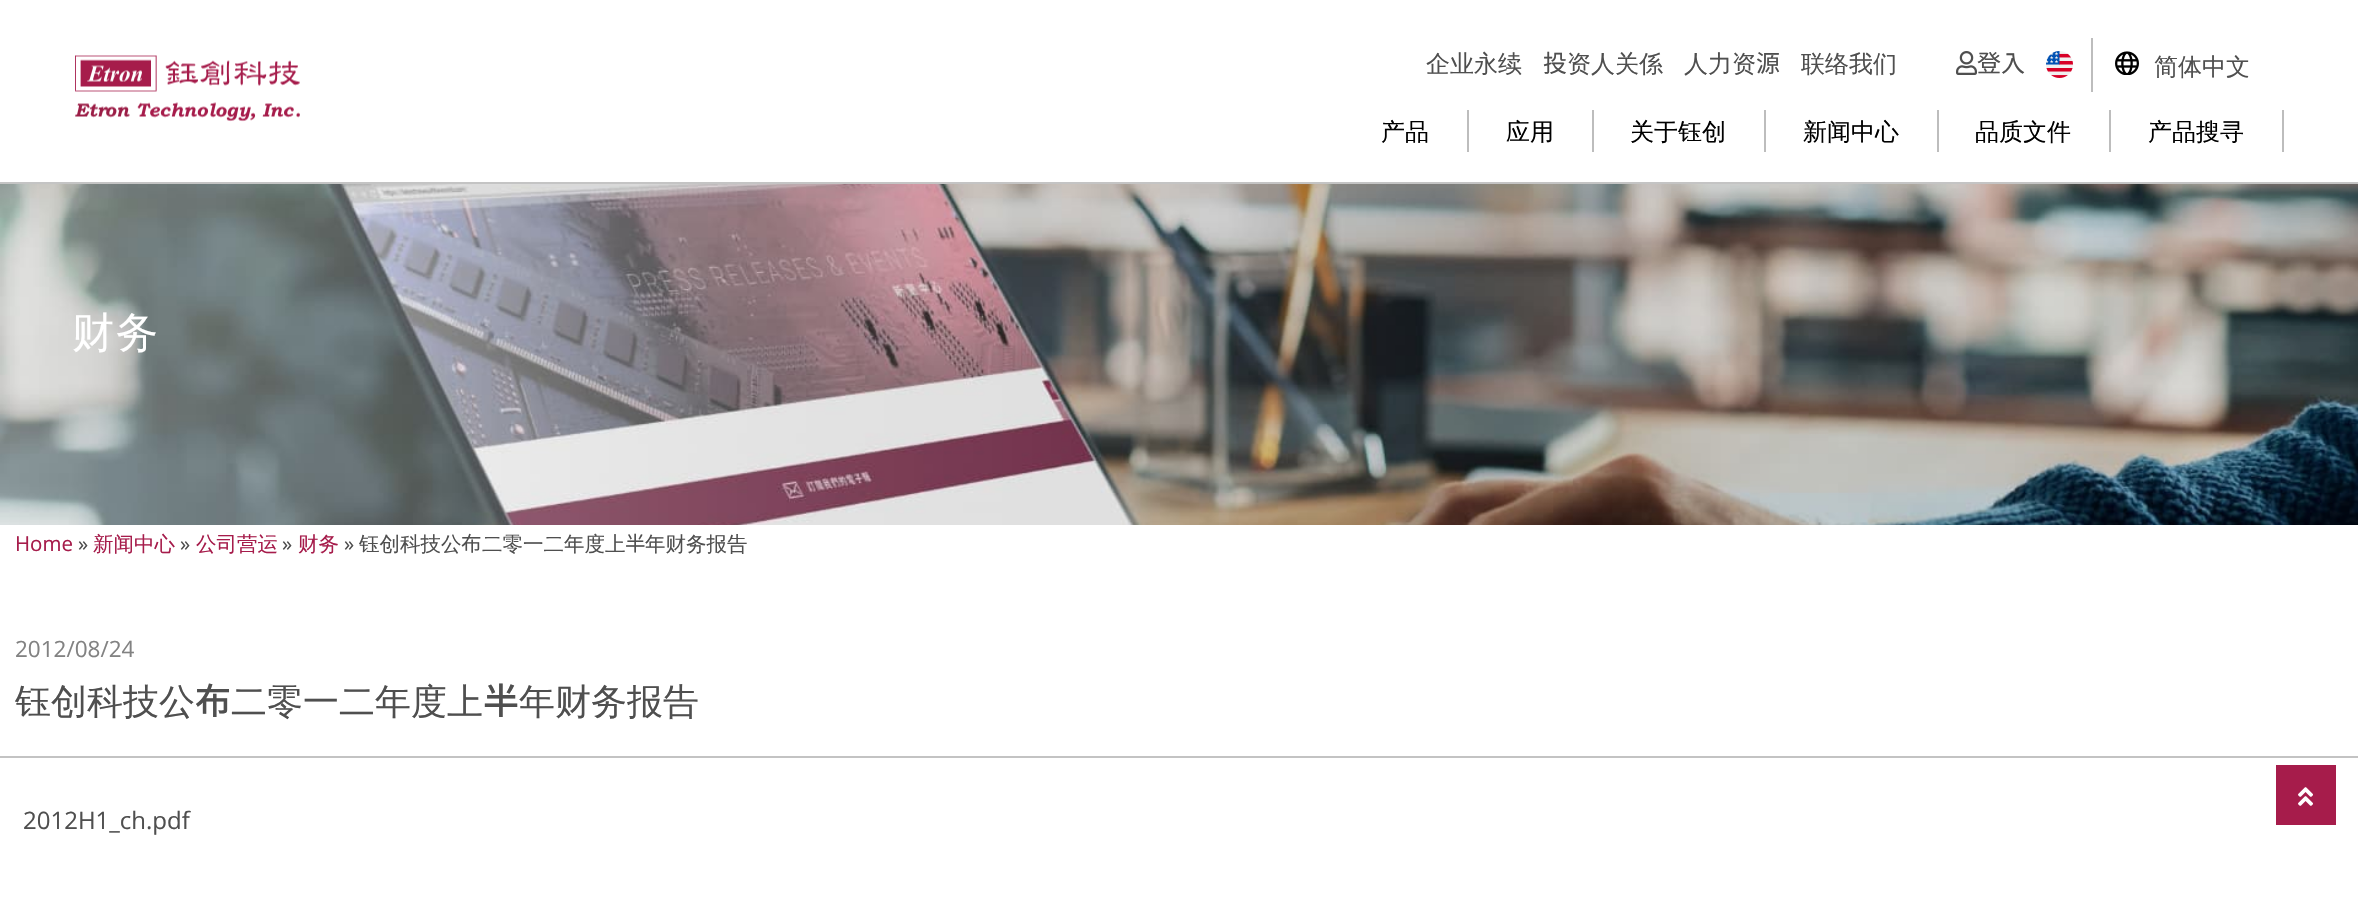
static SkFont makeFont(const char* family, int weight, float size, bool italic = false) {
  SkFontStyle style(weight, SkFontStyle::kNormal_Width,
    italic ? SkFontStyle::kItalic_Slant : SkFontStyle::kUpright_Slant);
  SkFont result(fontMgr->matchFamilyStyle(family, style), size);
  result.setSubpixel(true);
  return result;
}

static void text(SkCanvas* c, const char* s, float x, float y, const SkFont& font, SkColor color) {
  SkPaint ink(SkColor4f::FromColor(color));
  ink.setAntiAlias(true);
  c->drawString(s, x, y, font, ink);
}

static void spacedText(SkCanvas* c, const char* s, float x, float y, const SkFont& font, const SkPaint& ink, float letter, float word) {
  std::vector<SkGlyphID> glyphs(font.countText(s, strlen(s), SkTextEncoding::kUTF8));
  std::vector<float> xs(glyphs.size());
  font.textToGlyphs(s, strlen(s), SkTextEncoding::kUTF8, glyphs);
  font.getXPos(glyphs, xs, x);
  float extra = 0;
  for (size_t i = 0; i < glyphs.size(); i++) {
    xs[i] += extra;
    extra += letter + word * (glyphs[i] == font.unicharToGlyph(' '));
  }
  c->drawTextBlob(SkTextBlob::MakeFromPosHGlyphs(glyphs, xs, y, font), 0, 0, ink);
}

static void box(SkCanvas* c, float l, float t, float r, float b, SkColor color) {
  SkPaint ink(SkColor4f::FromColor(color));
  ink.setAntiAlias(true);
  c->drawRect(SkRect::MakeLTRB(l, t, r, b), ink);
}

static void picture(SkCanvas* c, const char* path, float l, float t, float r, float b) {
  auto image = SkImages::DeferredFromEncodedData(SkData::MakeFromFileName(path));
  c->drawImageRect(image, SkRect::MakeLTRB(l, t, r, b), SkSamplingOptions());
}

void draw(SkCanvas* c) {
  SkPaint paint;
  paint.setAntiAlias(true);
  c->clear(0xffffffff);
  box(c, 0, 182, 2358, 184, 0xffc4c4c4);
  picture(c, "img_01.png", 75, 55, 300, 122);
  SkFont face1 = makeFont("WenQuanYi Zen Hei", 500, 24);
  text(c, "企业永续", 1426, 72, face1, 0xff4f4f4f);
  SkFont face2 = makeFont("Noto Sans TC", 400, 24);
  text(c, "投", 1543, 72, face2, 0xff4f4f4f);
  text(c, "资人关係", 1567, 72, face1, 0xff4f4f4f);
  text(c, "人力资", 1684, 72, face1, 0xff4f4f4f);
  text(c, "源", 1756, 72, face2, 0xff4f4f4f);
  text(c, "联络我们", 1801, 72, face1, 0xff4f4f4f);
  picture(c, "img_02.png", 1956, 51, 1977, 75);
  text(c, "登入", 1977, 72, face2, 0xff4f4f4f);
  picture(c, "img_03.png", 2046, 51, 2073, 78);
  box(c, 2091, 38, 2093, 92, 0xffbdbdbd);
  picture(c, "img_04.png", 2115, 51, 2139, 75);
  text(c, "简体中文", 2154, 75, face1, 0xff4f4f4f);
  box(c, 1467, 110, 1469, 152, 0xffbdbdbd);
  text(c, "产品", 1381, 140, face1, 0xff000000);
  box(c, 1592, 110, 1594, 152, 0xffbdbdbd);
  text(c, "应用", 1506, 140, face1, 0xff000000);
  box(c, 1764, 110, 1766, 152, 0xffbdbdbd);
  text(c, "关于钰创", 1630, 140, face1, 0xff000000);
  box(c, 1937, 110, 1939, 152, 0xffbdbdbd);
  text(c, "新闻中心", 1803, 140, face1, 0xff000000);
  box(c, 2109, 110, 2111, 152, 0xffbdbdbd);
  text(c, "品质文件", 1975, 140, face1, 0xff000000);
  box(c, 2282, 110, 2284, 152, 0xffbdbdbd);
  text(c, "产品搜寻", 2148, 140, face1, 0xff000000);
  picture(c, "img_05.png", 0, 184, 2358, 525);
  SkFont face3 = makeFont("WenQuanYi Zen Hei", 500, 42);
  paint.setColor(0xffffffff);
  spacedText(c, "财务", 72, 347, face3, paint, 2, 0);
  box(c, 0, 756, 2358, 758, 0xffc3c3c3);
  SkFont face4 = makeFont("Open Sans", 400, 20.5f);
  text(c, "Home", 15, 551, face4, 0xffa61c4b);
  text(c, "»", 78, 551, face4, 0xff4f4f4f);
  SkFont face5 = makeFont("WenQuanYi Zen Hei", 500, 20.5f);
  text(c, "新闻中心", 93, 551, face5, 0xffa61c4b);
  text(c, "»", 180, 551, face4, 0xff4f4f4f);
  text(c, "公司营运", 196, 551, face5, 0xffa61c4b);
  text(c, "»", 282, 551, face4, 0xff4f4f4f);
  text(c, "财务", 298, 551, face5, 0xffa61c4b);
  text(c, "»", 344, 551, face4, 0xff4f4f4f);
  text(c, "钰创科技公", 359, 551, face5, 0xff4f4f4f);
  SkFont face6 = makeFont("Noto Sans TC", 400, 20.5f);
  text(c, "布", 461, 551, face6, 0xff4f4f4f);
  text(c, "二零一二年度上", 482, 551, face5, 0xff4f4f4f);
  text(c, "半", 625, 551, face6, 0xff4f4f4f);
  text(c, "年财务报告", 645, 551, face5, 0xff4f4f4f);
  SkFont face7 = makeFont("Open Sans", 400, 22.5f);
  text(c, "2012/08/24", 15, 657, face7, 0xff828282);
  SkFont face8 = makeFont("WenQuanYi Zen Hei", 500, 36);
  text(c, "钰创科技公", 15, 714, face8, 0xff4f4f4f);
  SkFont face9 = makeFont("Noto Sans TC", 500, 36);
  text(c, "布", 195, 714, face9, 0xff4f4f4f);
  text(c, "二零一二年度上", 231, 714, face8, 0xff4f4f4f);
  text(c, "半", 483, 714, face9, 0xff4f4f4f);
  text(c, "年财务报告", 519, 714, face8, 0xff4f4f4f);
  SkFont face10 = makeFont("Open Sans", 400, 24);
  text(c, "2012H1_ch.pdf", 23, 829, face10, 0xff4f4f4f);
  box(c, 2276, 765, 2336, 825, 0xffa61c4b);
  picture(c, "img_06.png", 2298, 787, 2313, 806);
}
